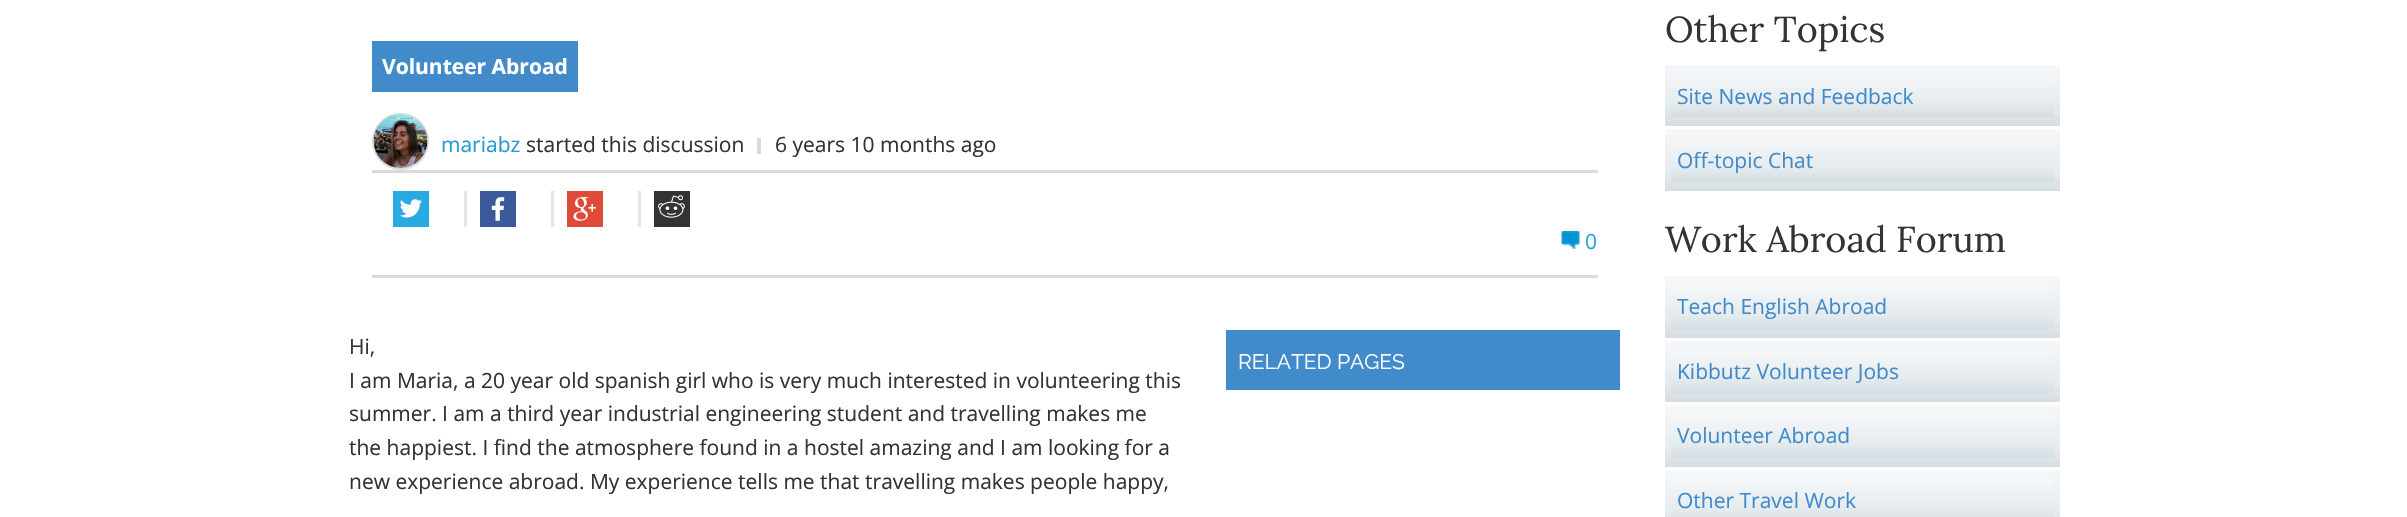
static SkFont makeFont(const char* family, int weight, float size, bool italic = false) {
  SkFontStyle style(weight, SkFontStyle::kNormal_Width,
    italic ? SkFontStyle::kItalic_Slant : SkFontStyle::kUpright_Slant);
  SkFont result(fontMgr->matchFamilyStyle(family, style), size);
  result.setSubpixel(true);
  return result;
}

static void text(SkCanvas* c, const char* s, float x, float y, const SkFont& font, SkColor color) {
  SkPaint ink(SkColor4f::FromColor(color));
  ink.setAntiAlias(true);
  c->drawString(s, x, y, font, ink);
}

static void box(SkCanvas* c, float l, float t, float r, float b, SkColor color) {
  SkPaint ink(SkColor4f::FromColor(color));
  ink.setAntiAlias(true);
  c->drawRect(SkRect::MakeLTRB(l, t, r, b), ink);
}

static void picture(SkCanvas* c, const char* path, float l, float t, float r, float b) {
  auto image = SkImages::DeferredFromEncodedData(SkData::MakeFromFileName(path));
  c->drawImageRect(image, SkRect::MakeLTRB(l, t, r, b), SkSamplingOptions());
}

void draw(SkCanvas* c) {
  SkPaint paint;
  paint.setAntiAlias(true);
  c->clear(0xffffffff);
  box(c, 372, 41, 578, 92, 0xff418bca);
  SkFont face1 = makeFont("Open Sans", 700, 21);
  text(c, "Volunteer Abroad", 382, 74, face1, 0xffffffff);
  paint.setStyle(SkPaint::kStroke_Style);
  paint.setStrokeWidth(2);
  paint.setColor(0xffdddddd);
  c->drawCircle(400.5f, 141.5f, 27.5f, paint);
  picture(c, "img_01.png", 373, 114, 428, 168);
  SkFont face2 = makeFont("Open Sans", 400, 21);
  text(c, "mariabz", 441, 152, face2, 0xff279ad4);
  text(c, "started this discussion", 526, 152, face2, 0xff333333);
  box(c, 757, 138, 761, 154, 0xffdadada);
  text(c, "6 years 10 months ago", 775, 152, face2, 0xff333333);
  box(c, 372, 170, 1598, 173, 0xffdadada);
  box(c, 372, 275, 1598, 278, 0xffdadada);
  box(c, 393, 191, 429, 227, 0xff29a9e1);
  picture(c, "img_02.png", 399, 199, 422, 218);
  box(c, 464, 191, 467, 227, 0xffe5e5e5);
  box(c, 480, 191, 516, 227, 0xff3b5a9a);
  picture(c, "img_03.png", 491, 197, 505, 221);
  box(c, 551, 191, 554, 227, 0xffe5e5e5);
  box(c, 567, 191, 603, 227, 0xffdf4b38);
  picture(c, "img_04.png", 573, 197, 596, 221);
  box(c, 638, 191, 641, 227, 0xffe5e5e5);
  box(c, 654, 191, 690, 227, 0xff333333);
  picture(c, "img_05.png", 658, 195, 685, 218);
  picture(c, "img_06.png", 1561, 231, 1580, 249);
  text(c, "0", 1585, 249, face2, 0xff26a6d8);
  text(c, "Hi,", 349, 354, face2, 0xff333333);
  text(c, "I am Maria, a 20 year old spanish girl who is very much interested in volunteering this", 349, 388, face2, 0xff333333);
  text(c, "summer. I am a third year industrial engineering student and travelling makes me", 349, 421, face2, 0xff333333);
  text(c, "the happiest. I find the atmosphere found in a hostel amazing and I am looking for a", 349, 455, face2, 0xff333333);
  text(c, "new experience abroad. My experience tells me that travelling makes people happy,", 349, 489, face2, 0xff333333);
  box(c, 1226, 330, 1620, 390, 0xff418bca);
  SkFont face3 = makeFont("Raleway", 400, 21);
  text(c, "RELATED PAGES", 1238, 369, face3, 0xffffffff);
  SkFont face4 = makeFont("Lora", 400, 36);
  text(c, "Other Topics", 1665, 42, face4, 0xff333333);
  paint.setStyle(SkPaint::kFill_Style);
  {
    const SkColor colors[] = {0xfff6f8f9, 0xffe5ebee, 0xffd7dee3, 0xfff5f7f9};
    const float stops[] = {0, 0.68f, 1, 1};
    const SkPoint ends[] = {{1862, 64}, {1862, 126}};
    paint.setShader(SkGradientShader::MakeLinear(ends, colors, stops, 4, SkTileMode::kClamp));
    paint.setAlpha(255);
  }
  c->drawRect(SkRect::MakeLTRB(1665, 65, 2060, 126), paint);
  {
    const SkColor colors[] = {0xfff6f8f9, 0xffe5ebee, 0xffd7dee3, 0xfff5f7f9};
    const float stops[] = {0, 0.68f, 1, 1};
    const SkPoint ends[] = {{1862, 73}, {1862, 117}};
    paint.setShader(SkGradientShader::MakeLinear(ends, colors, stops, 4, SkTileMode::kClamp));
    paint.setAlpha(255);
  }
  c->drawRect(SkRect::MakeLTRB(1671, 74, 2054, 117), paint);
  text(c, "Site News and Feedback", 1677, 104, face2, 0xff428bca);
  {
    const SkColor colors[] = {0xfff6f8f9, 0xffe5ebee, 0xffd7dee3, 0xfff5f7f9};
    const float stops[] = {0, 0.68f, 1, 1};
    const SkPoint ends[] = {{1862, 129}, {1862, 191}};
    paint.setShader(SkGradientShader::MakeLinear(ends, colors, stops, 4, SkTileMode::kClamp));
    paint.setAlpha(255);
  }
  c->drawRect(SkRect::MakeLTRB(1665, 129, 2060, 191), paint);
  {
    const SkColor colors[] = {0xfff6f8f9, 0xffe5ebee, 0xffd7dee3, 0xfff5f7f9};
    const float stops[] = {0, 0.68f, 1, 1};
    const SkPoint ends[] = {{1862, 138}, {1862, 182}};
    paint.setShader(SkGradientShader::MakeLinear(ends, colors, stops, 4, SkTileMode::kClamp));
    paint.setAlpha(255);
  }
  c->drawRect(SkRect::MakeLTRB(1671, 138, 2054, 182), paint);
  text(c, "Off-topic Chat", 1677, 168, face2, 0xff428bca);
  text(c, "Work Abroad Forum", 1665, 252, face4, 0xff333333);
  {
    const SkColor colors[] = {0xfff6f8f9, 0xffe5ebee, 0xffd7dee3, 0xfff5f7f9};
    const float stops[] = {0, 0.68f, 1, 1};
    const SkPoint ends[] = {{1862, 276}, {1862, 338}};
    paint.setShader(SkGradientShader::MakeLinear(ends, colors, stops, 4, SkTileMode::kClamp));
    paint.setAlpha(255);
  }
  c->drawRect(SkRect::MakeLTRB(1665, 276, 2060, 338), paint);
  {
    const SkColor colors[] = {0xfff6f8f9, 0xffe5ebee, 0xffd7dee3, 0xfff5f7f9};
    const float stops[] = {0, 0.68f, 1, 1};
    const SkPoint ends[] = {{1862, 285}, {1862, 329}};
    paint.setShader(SkGradientShader::MakeLinear(ends, colors, stops, 4, SkTileMode::kClamp));
    paint.setAlpha(255);
  }
  c->drawRect(SkRect::MakeLTRB(1671, 285, 2054, 329), paint);
  text(c, "Teach English Abroad", 1677, 314, face2, 0xff428bca);
  {
    const SkColor colors[] = {0xfff6f8f9, 0xffe5ebee, 0xffd7dee3, 0xfff5f7f9};
    const float stops[] = {0, 0.68f, 1, 1};
    const SkPoint ends[] = {{1862, 340}, {1862, 402}};
    paint.setShader(SkGradientShader::MakeLinear(ends, colors, stops, 4, SkTileMode::kClamp));
    paint.setAlpha(255);
  }
  c->drawRect(SkRect::MakeLTRB(1665, 341, 2060, 402), paint);
  {
    const SkColor colors[] = {0xfff6f8f9, 0xffe5ebee, 0xffd7dee3, 0xfff5f7f9};
    const float stops[] = {0, 0.68f, 1, 1};
    const SkPoint ends[] = {{1862, 349}, {1862, 393}};
    paint.setShader(SkGradientShader::MakeLinear(ends, colors, stops, 4, SkTileMode::kClamp));
    paint.setAlpha(255);
  }
  c->drawRect(SkRect::MakeLTRB(1671, 350, 2054, 393), paint);
  text(c, "Kibbutz Volunteer Jobs", 1677, 379, face2, 0xff428bca);
  {
    const SkColor colors[] = {0xfff6f8f9, 0xffe5ebee, 0xffd7dee3, 0xfff5f7f9};
    const float stops[] = {0, 0.68f, 1, 1};
    const SkPoint ends[] = {{1862, 405}, {1862, 467}};
    paint.setShader(SkGradientShader::MakeLinear(ends, colors, stops, 4, SkTileMode::kClamp));
    paint.setAlpha(255);
  }
  c->drawRect(SkRect::MakeLTRB(1665, 405, 2060, 467), paint);
  {
    const SkColor colors[] = {0xfff6f8f9, 0xffe5ebee, 0xffd7dee3, 0xfff5f7f9};
    const float stops[] = {0, 0.68f, 1, 1};
    const SkPoint ends[] = {{1862, 414}, {1862, 458}};
    paint.setShader(SkGradientShader::MakeLinear(ends, colors, stops, 4, SkTileMode::kClamp));
    paint.setAlpha(255);
  }
  c->drawRect(SkRect::MakeLTRB(1671, 414, 2054, 458), paint);
  text(c, "Volunteer Abroad", 1677, 443, face2, 0xff428bca);
  {
    const SkColor colors[] = {0xfff6f8f9, 0xffe5ebee, 0xffd7dee3, 0xfff5f7f9};
    const float stops[] = {0, 0.68f, 1, 1};
    const SkPoint ends[] = {{1862, 470}, {1862, 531}};
    paint.setShader(SkGradientShader::MakeLinear(ends, colors, stops, 4, SkTileMode::kClamp));
    paint.setAlpha(255);
  }
  c->drawRect(SkRect::MakeLTRB(1665, 470, 2060, 517), paint);
  {
    const SkColor colors[] = {0xfff6f8f9, 0xffe5ebee, 0xffd7dee3, 0xfff5f7f9};
    const float stops[] = {0, 0.68f, 1, 1};
    const SkPoint ends[] = {{1862, 479}, {1862, 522}};
    paint.setShader(SkGradientShader::MakeLinear(ends, colors, stops, 4, SkTileMode::kClamp));
    paint.setAlpha(255);
  }
  c->drawRect(SkRect::MakeLTRB(1671, 479, 2054, 517), paint);
  text(c, "Other Travel Work", 1677, 508, face2, 0xff428bca);
}
